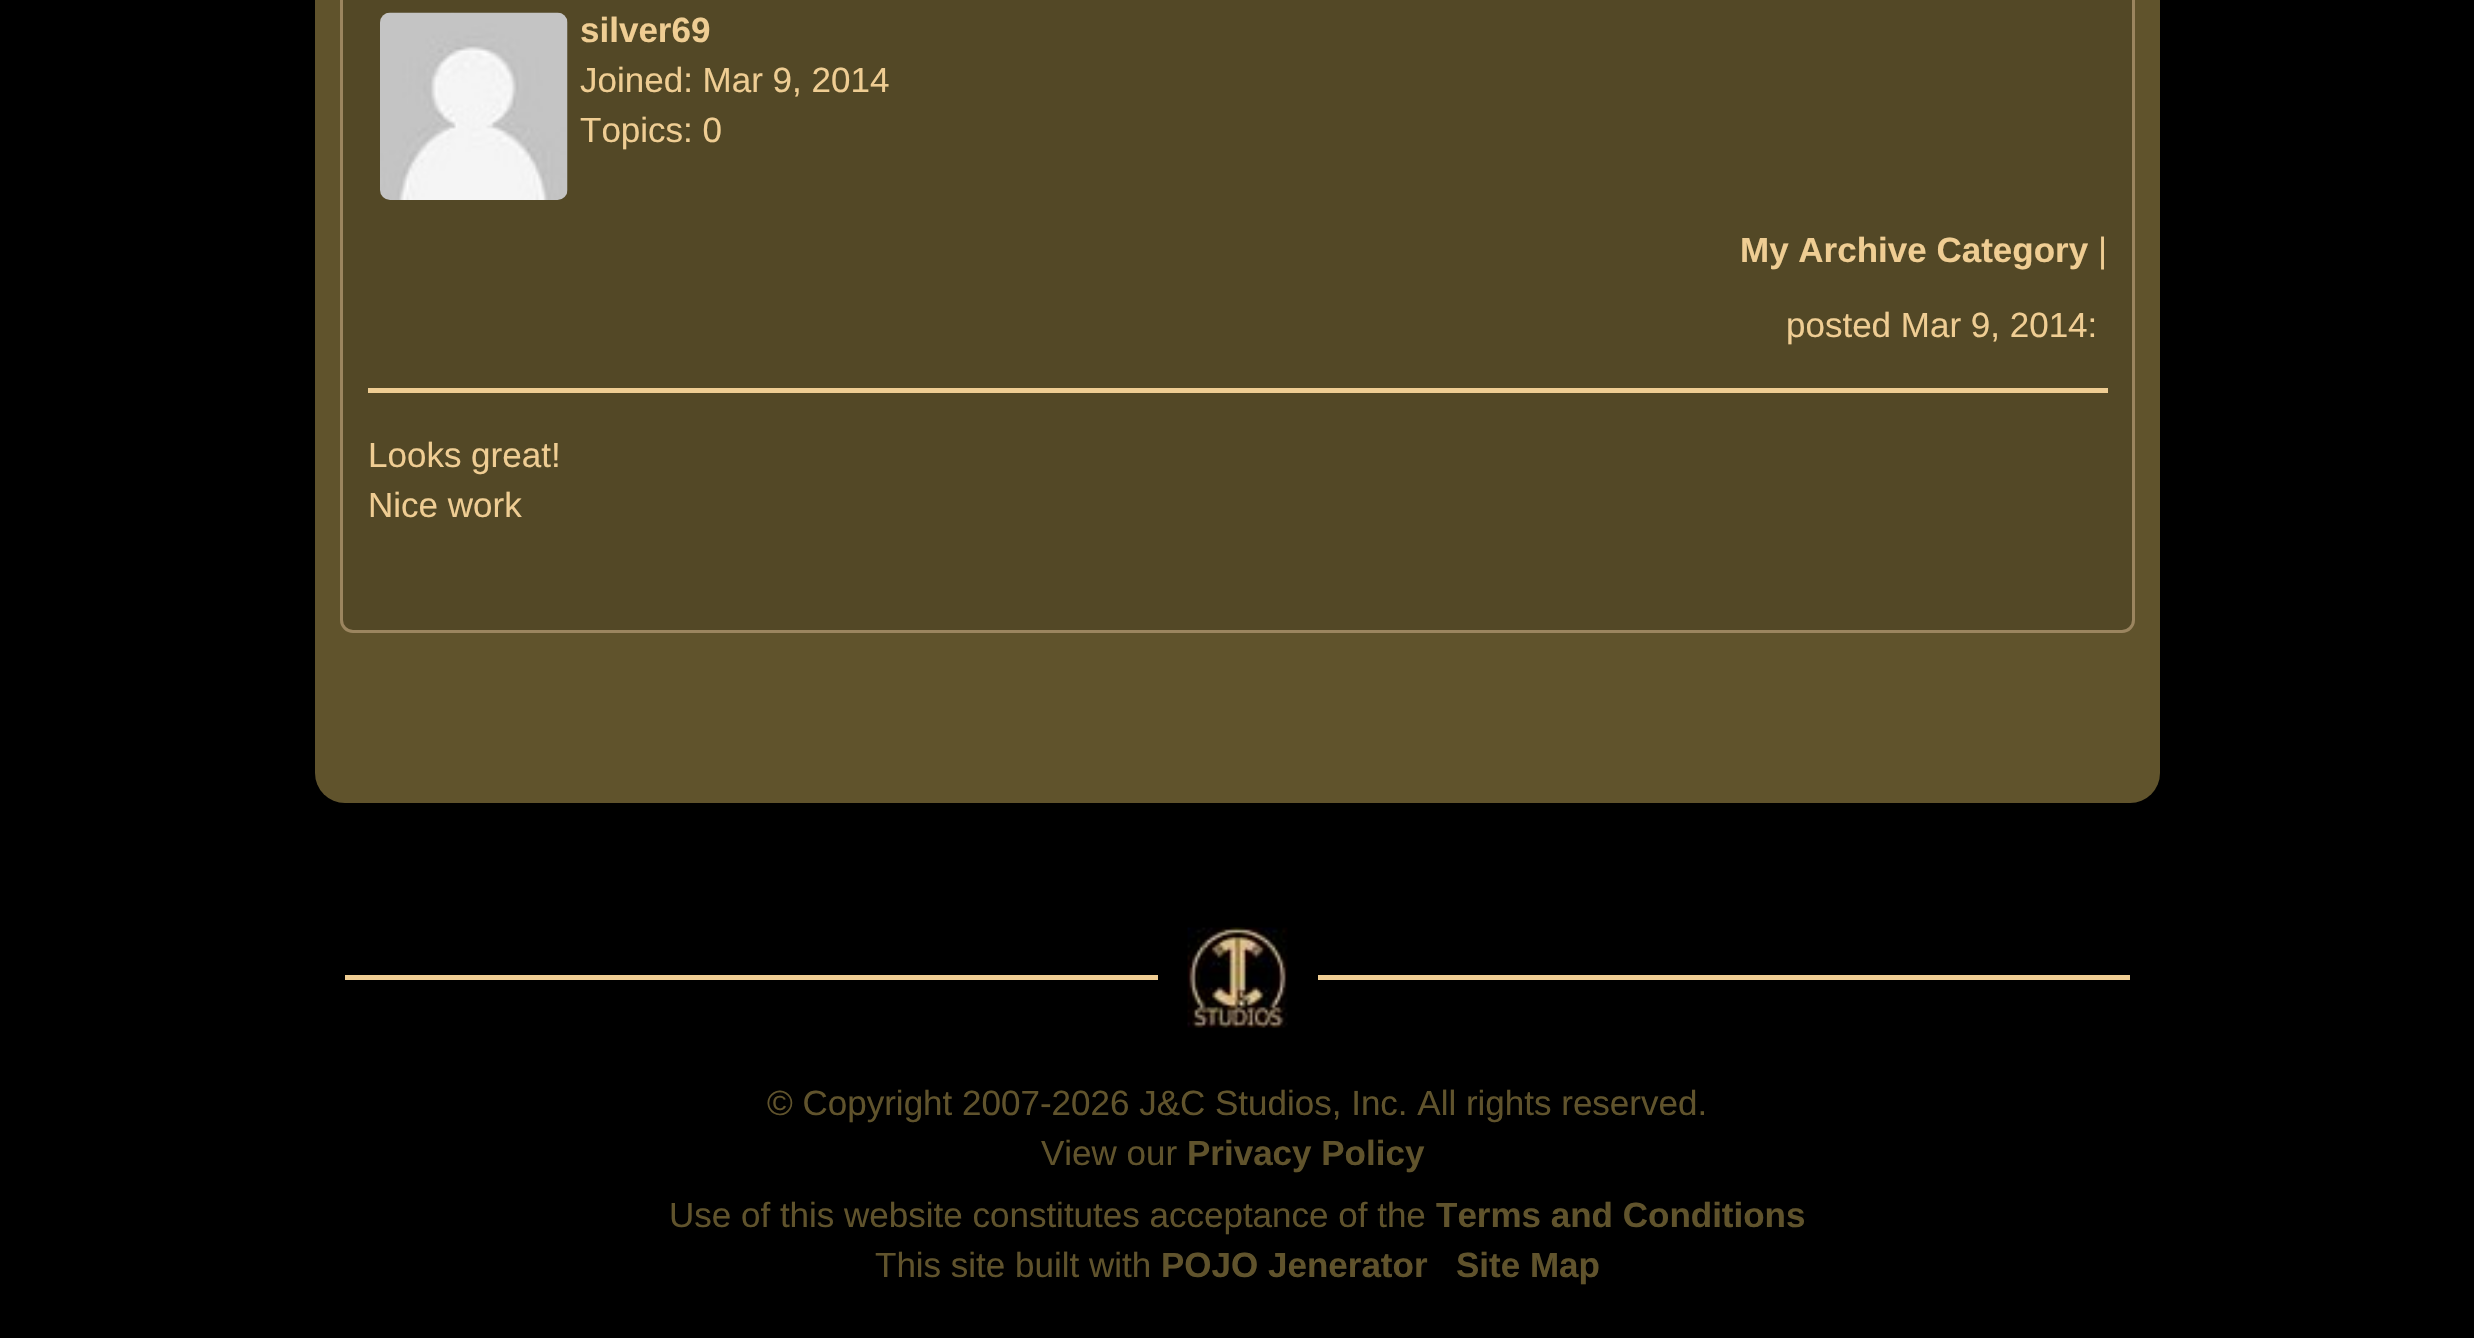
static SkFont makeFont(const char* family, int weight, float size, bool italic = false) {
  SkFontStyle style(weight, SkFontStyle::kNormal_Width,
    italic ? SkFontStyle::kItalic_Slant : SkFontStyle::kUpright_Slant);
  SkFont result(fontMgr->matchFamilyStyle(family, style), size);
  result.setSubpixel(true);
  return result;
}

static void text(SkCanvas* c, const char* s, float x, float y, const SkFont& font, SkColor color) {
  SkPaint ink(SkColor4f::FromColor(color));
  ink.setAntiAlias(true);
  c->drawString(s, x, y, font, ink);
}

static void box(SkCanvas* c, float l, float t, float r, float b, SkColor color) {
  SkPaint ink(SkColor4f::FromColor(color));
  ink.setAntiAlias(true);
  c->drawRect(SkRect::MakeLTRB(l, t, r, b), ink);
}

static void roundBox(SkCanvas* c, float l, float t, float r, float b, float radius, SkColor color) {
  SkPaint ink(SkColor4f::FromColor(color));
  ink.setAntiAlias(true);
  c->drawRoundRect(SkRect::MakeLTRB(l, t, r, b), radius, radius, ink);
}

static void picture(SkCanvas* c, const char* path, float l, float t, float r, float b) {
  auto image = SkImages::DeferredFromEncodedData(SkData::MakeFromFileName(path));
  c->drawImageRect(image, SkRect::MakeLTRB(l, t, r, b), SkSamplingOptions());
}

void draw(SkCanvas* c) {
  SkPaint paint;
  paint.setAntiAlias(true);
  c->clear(0xff000000);
  roundBox(c, 315, -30, 2160, 803, 30, 0xff60532c);
  paint.setColor(0xff534826);
  c->drawRoundRect(SkRect::MakeLTRB(341.5f, -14.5f, 2133.5f, 631.5f), 11.5f, 11.5f, paint);
  paint.setStyle(SkPaint::kStroke_Style);
  paint.setStrokeWidth(3);
  paint.setColor(0xff9b855f);
  c->drawRoundRect(SkRect::MakeLTRB(341.5f, -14.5f, 2133.5f, 631.5f), 11.5f, 11.5f, paint);
  picture(c, "img_01.png", 380, 12, 568, 200);
  SkFont face1 = makeFont("Liberation Sans", 700, 35);
  text(c, "silver69", 580, 42, face1, 0xffefcd93);
  SkFont face2 = makeFont("Liberation Sans", 400, 35);
  text(c, "Joined: Mar 9, 2014", 580, 92, face2, 0xffefcd93);
  text(c, "Topics: 0", 580, 142, face2, 0xffefcd93);
  text(c, "My Archive Category", 1740, 262, face1, 0xffefcd93);
  text(c, "|", 2098, 262, face2, 0xffefcd93);
  text(c, "posted Mar 9, 2014:", 1786, 337, face2, 0xffefcd93);
  box(c, 368, 388, 2108, 393, 0xffefcd93);
  text(c, "Looks great!", 368, 467, face2, 0xffefcd93);
  text(c, "Nice work", 368, 517, face2, 0xffefcd93);
  box(c, 345, 975, 1158, 980, 0xffefcd93);
  picture(c, "img_02.png", 1187, 927, 1288, 1028);
  box(c, 1318, 975, 2130, 980, 0xffefcd93);
  text(c, "© Copyright 2007-2026 J&C Studios, Inc. All rights reserved.", 767, 1115, face2, 0xff60532c);
  text(c, "View our", 1041, 1165, face2, 0xff60532c);
  text(c, "Privacy Policy", 1187, 1165, face1, 0xff60532c);
  text(c, "Use of this website constitutes acceptance of the", 669, 1227, face2, 0xff60532c);
  text(c, "Terms and Conditions", 1436, 1227, face1, 0xff60532c);
  text(c, "This site built with", 875, 1277, face2, 0xff60532c);
  text(c, "POJO Jenerator", 1161, 1277, face1, 0xff60532c);
  text(c, "Site Map", 1456, 1277, face1, 0xff60532c);
}
